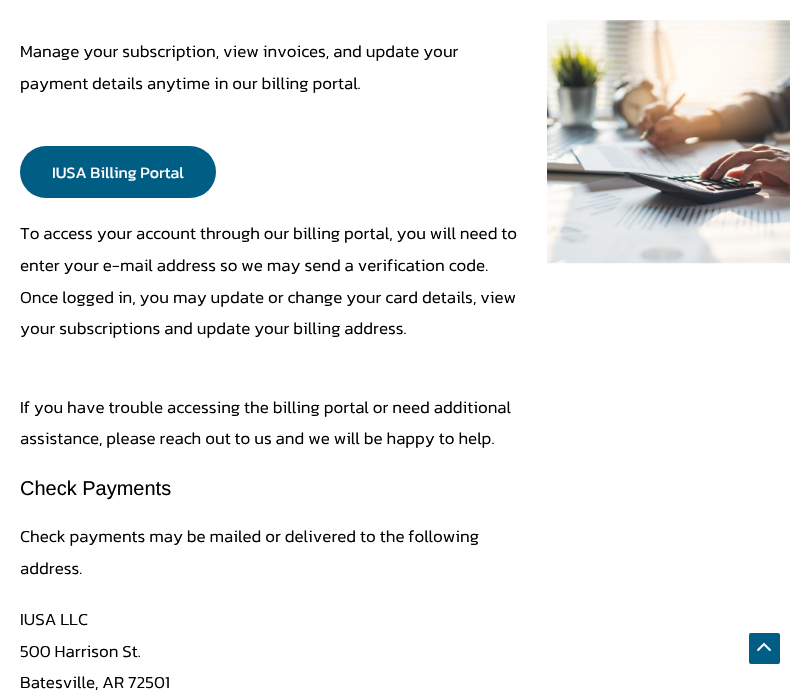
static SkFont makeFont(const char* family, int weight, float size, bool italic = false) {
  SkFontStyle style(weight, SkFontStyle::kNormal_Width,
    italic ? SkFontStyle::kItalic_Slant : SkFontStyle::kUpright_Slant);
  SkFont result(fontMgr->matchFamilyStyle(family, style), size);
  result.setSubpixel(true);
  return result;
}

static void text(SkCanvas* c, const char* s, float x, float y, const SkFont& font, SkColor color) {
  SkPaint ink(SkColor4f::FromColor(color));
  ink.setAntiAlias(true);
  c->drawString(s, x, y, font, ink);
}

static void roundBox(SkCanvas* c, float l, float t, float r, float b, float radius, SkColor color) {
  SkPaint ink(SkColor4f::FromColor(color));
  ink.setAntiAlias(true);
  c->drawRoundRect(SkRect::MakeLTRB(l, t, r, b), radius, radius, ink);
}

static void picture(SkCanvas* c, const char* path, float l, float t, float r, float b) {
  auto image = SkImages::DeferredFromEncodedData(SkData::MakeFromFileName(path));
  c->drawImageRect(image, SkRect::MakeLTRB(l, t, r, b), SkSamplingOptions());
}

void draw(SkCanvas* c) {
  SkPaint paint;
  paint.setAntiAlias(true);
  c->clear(0xffffffff);
  SkFont face1 = makeFont("Kanit", 300, 17);
  text(c, "Manage your subscription, view invoices, and update your", 20, 57, face1, 0xff000000);
  text(c, "payment details anytime in our billing portal.", 20, 89, face1, 0xff000000);
  roundBox(c, 20, 146, 216, 198, 26, 0xff005d84);
  SkFont face2 = makeFont("Kanit", 400, 16);
  text(c, "IUSA Billing Portal", 52, 178, face2, 0xffffffff);
  text(c, "To access your account through our billing portal, you will need to", 20, 239, face1, 0xff000000);
  text(c, "enter your e-mail address so we may send a verification code.", 20, 271, face1, 0xff000000);
  text(c, "Once logged in, you may update or change your card details, view", 20, 303, face1, 0xff000000);
  text(c, "your subscriptions and update your billing address.", 20, 334, face1, 0xff000000);
  text(c, "If you have trouble accessing the billing portal or need additional", 20, 413, face1, 0xff000000);
  text(c, "assistance, please reach out to us and we will be happy to help.", 20, 444, face1, 0xff000000);
  SkFont face3 = makeFont("Liberation Sans", 400, 20);
  text(c, "Check Payments", 20, 495, face3, 0xff000000);
  text(c, "Check payments may be mailed or delivered to the following", 20, 542, face1, 0xff000000);
  text(c, "address.", 20, 574, face1, 0xff000000);
  text(c, "IUSA LLC", 20, 625, face1, 0xff000000);
  text(c, "500 Harrison St.", 20, 657, face1, 0xff000000);
  text(c, "Batesville, AR 72501", 20, 688, face1, 0xff000000);
  picture(c, "img_01.png", 547, 20, 790, 264);
  roundBox(c, 749, 633, 780, 664, 2, 0xff005d84);
  picture(c, "img_02.png", 757, 642, 772, 652);
}
